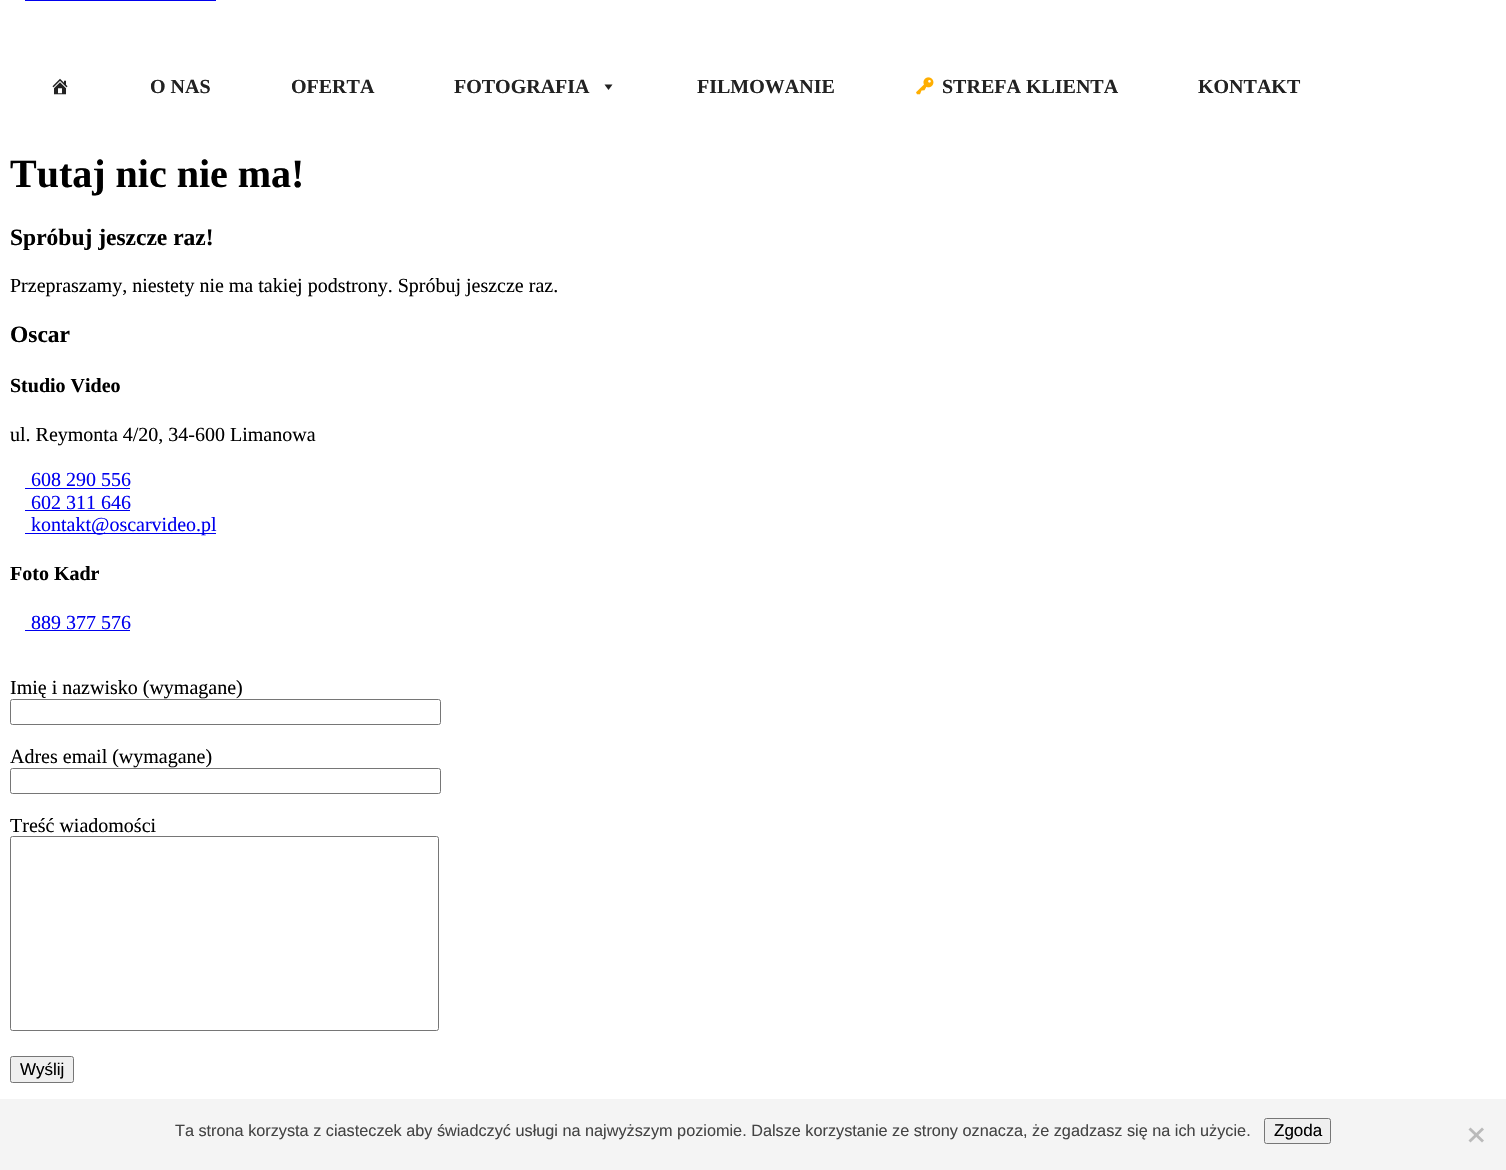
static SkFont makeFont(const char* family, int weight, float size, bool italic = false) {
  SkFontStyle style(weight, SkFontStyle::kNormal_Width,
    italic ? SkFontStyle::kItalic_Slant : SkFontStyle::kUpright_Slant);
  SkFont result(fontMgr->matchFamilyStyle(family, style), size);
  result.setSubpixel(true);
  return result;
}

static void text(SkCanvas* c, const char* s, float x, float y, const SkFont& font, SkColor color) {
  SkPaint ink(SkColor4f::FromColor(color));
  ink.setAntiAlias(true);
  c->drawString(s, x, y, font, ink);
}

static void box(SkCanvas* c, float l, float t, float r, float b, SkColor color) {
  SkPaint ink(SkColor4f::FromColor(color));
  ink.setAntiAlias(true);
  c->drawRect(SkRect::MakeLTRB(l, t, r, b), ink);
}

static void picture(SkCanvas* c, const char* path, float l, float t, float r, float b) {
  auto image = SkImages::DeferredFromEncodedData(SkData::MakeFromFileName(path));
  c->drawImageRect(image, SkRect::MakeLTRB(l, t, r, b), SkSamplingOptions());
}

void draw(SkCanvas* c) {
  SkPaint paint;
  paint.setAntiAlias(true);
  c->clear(0xffffffff);
  box(c, 25, 0, 216, 1, 0xff0000ee);
  picture(c, "img_01.png", 52, 78, 68, 95);
  SkFont face1 = makeFont("Liberation Serif", 700, 20);
  text(c, "O NAS", 150, 93, face1, 0xff222222);
  text(c, "OFERTA", 291, 93, face1, 0xff222222);
  text(c, "FOTOGRAFIA", 454, 93, face1, 0xff222222);
  paint.setColor(0xff222222);
  c->drawPath(SkPathBuilder().moveTo(612.5f, 84.5f).lineTo(608.5f, 90).lineTo(604.5f, 84.5f).close().detach(), paint);
  text(c, "FILMOWANIE", 697, 93, face1, 0xff222222);
  picture(c, "img_02.png", 916, 77, 934, 95);
  text(c, "STREFA KLIENTA", 942, 93, face1, 0xff222222);
  text(c, "KONTAKT", 1198, 93, face1, 0xff222222);
  SkFont face2 = makeFont("Liberation Serif", 700, 40);
  text(c, "Tutaj nic nie ma!", 10, 187, face2, 0xff000000);
  SkFont face3 = makeFont("Liberation Serif", 700, 23.5f);
  text(c, "Spróbuj jeszcze raz!", 10, 245, face3, 0xff000000);
  SkFont face4 = makeFont("Liberation Serif", 400, 20);
  text(c, "Przepraszamy, niestety nie ma takiej podstrony. Spróbuj jeszcze raz.", 10, 292, face4, 0xff000000);
  text(c, "Oscar", 10, 342, face3, 0xff000000);
  text(c, "Studio Video", 10, 392, face1, 0xff000000);
  text(c, "ul. Reymonta 4/20, 34-600 Limanowa", 10, 441, face4, 0xff000000);
  text(c, "608 290 556", 31, 486, face4, 0xff0000ee);
  box(c, 25, 488, 130, 489, 0xff0000ee);
  text(c, "602 311 646", 31, 509, face4, 0xff0000ee);
  box(c, 25, 510, 130, 511, 0xff0000ee);
  box(c, 25, 533, 216, 534, 0xff0000ee);
  text(c, "kontakt@oscarvideo.pl", 31, 531, face4, 0xff0000ee);
  text(c, "Foto Kadr", 10, 580, face1, 0xff000000);
  text(c, "889 377 576", 31, 629, face4, 0xff0000ee);
  box(c, 25, 630, 130, 631, 0xff0000ee);
  text(c, "Imię i nazwisko (wymagane)", 10, 694, face4, 0xff000000);
  paint.setStyle(SkPaint::kStroke_Style);
  paint.setStrokeWidth(1);
  paint.setColor(0xff767676);
  c->drawRoundRect(SkRect::MakeLTRB(10.5f, 699.5f, 440.5f, 724.5f), 2, 2, paint);
  text(c, "Adres email (wymagane)", 10, 763, face4, 0xff000000);
  c->drawRoundRect(SkRect::MakeLTRB(10.5f, 768.5f, 440.5f, 793.5f), 2, 2, paint);
  text(c, "Treść wiadomości", 10, 832, face4, 0xff000000);
  c->drawRoundRect(SkRect::MakeLTRB(10.5f, 836.5f, 438.5f, 1030.5f), 2, 2, paint);
  paint.setStyle(SkPaint::kFill_Style);
  paint.setColor(0xffefefef);
  c->drawRoundRect(SkRect::MakeLTRB(10.5f, 1056.5f, 73.5f, 1082.5f), 2, 2, paint);
  paint.setStyle(SkPaint::kStroke_Style);
  paint.setColor(0xff767676);
  c->drawRoundRect(SkRect::MakeLTRB(10.5f, 1056.5f, 73.5f, 1082.5f), 2, 2, paint);
  SkFont face5 = makeFont("Liberation Sans", 400, 17);
  text(c, "Wyślij", 20, 1075, face5, 0xff000000);
  box(c, 0, 1099, 1506, 1170, 0xfff4f4f4);
  SkFont face6 = makeFont("Liberation Sans", 400, 16.25f);
  text(c, "Ta strona korzysta z ciasteczek aby świadczyć usługi na najwyższym poziomie. Dalsze korzystanie ze strony oznacza, że zgadzasz się na ich użycie.", 175, 1136, face6, 0xff444444);
  paint.setStyle(SkPaint::kFill_Style);
  paint.setColor(0xffefefef);
  c->drawRoundRect(SkRect::MakeLTRB(1264.5f, 1118.5f, 1330.5f, 1143.5f), 2, 2, paint);
  paint.setStyle(SkPaint::kStroke_Style);
  paint.setColor(0xff767676);
  c->drawRoundRect(SkRect::MakeLTRB(1264.5f, 1118.5f, 1330.5f, 1143.5f), 2, 2, paint);
  text(c, "Zgoda", 1274, 1136, face5, 0xff000000);
  paint.setStyle(SkPaint::kFill_Style);
  paint.setColor(0xffbababa);
  c->drawPath(SkPathBuilder().moveTo(1482, 1127.5f).lineTo(1484, 1129.5f).lineTo(1470.5f, 1142.5f).lineTo(1468.5f, 1140.5f).close().detach(), paint);
  c->drawPath(SkPathBuilder().moveTo(1468.5f, 1129.5f).lineTo(1470.5f, 1127.5f).lineTo(1484, 1140.5f).lineTo(1482, 1142.5f).close().detach(), paint);
}
